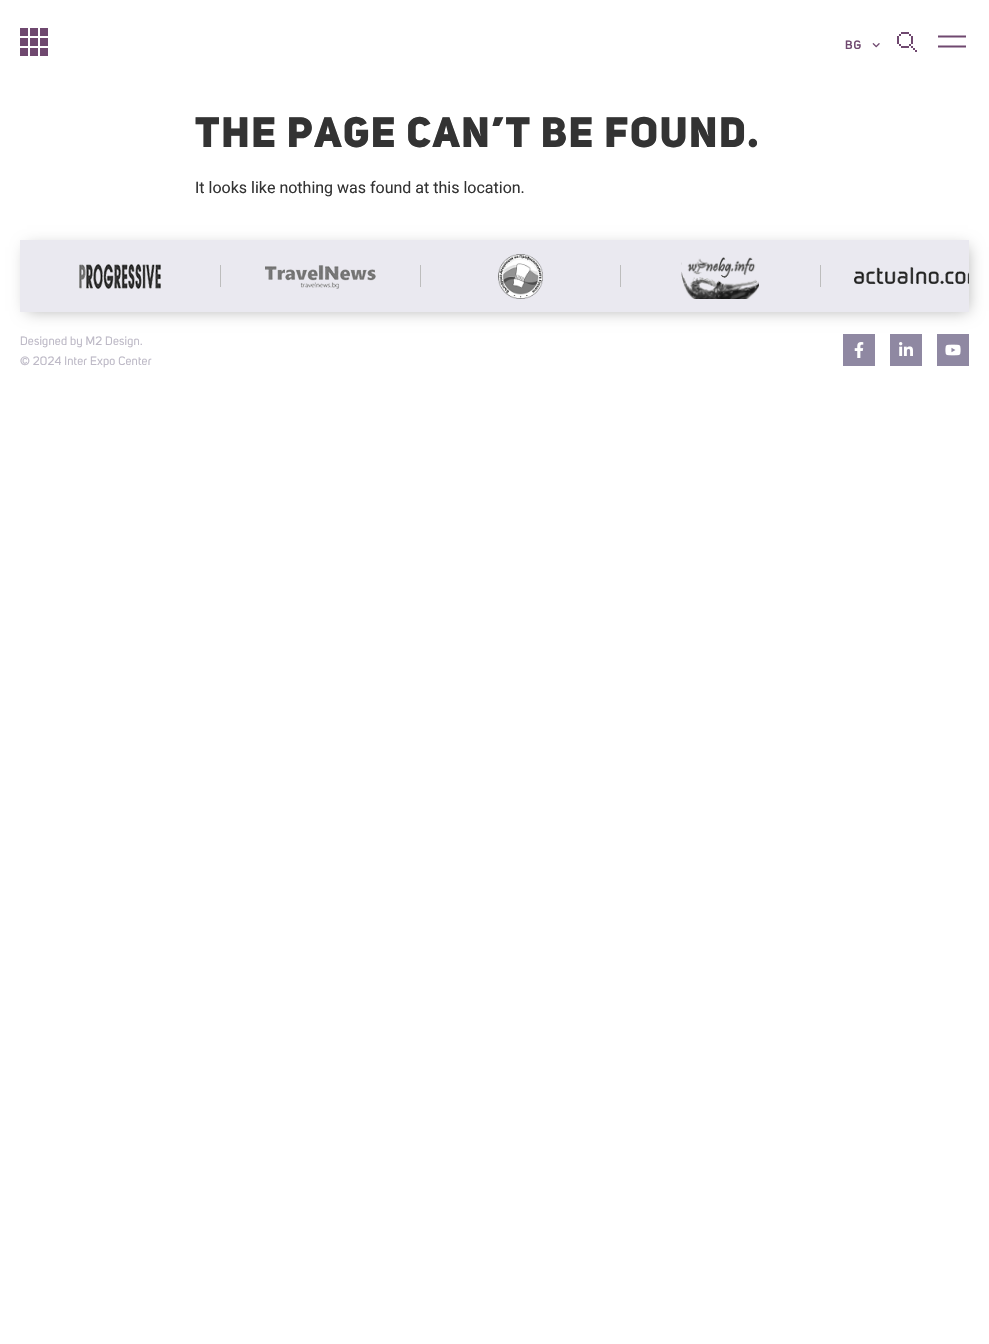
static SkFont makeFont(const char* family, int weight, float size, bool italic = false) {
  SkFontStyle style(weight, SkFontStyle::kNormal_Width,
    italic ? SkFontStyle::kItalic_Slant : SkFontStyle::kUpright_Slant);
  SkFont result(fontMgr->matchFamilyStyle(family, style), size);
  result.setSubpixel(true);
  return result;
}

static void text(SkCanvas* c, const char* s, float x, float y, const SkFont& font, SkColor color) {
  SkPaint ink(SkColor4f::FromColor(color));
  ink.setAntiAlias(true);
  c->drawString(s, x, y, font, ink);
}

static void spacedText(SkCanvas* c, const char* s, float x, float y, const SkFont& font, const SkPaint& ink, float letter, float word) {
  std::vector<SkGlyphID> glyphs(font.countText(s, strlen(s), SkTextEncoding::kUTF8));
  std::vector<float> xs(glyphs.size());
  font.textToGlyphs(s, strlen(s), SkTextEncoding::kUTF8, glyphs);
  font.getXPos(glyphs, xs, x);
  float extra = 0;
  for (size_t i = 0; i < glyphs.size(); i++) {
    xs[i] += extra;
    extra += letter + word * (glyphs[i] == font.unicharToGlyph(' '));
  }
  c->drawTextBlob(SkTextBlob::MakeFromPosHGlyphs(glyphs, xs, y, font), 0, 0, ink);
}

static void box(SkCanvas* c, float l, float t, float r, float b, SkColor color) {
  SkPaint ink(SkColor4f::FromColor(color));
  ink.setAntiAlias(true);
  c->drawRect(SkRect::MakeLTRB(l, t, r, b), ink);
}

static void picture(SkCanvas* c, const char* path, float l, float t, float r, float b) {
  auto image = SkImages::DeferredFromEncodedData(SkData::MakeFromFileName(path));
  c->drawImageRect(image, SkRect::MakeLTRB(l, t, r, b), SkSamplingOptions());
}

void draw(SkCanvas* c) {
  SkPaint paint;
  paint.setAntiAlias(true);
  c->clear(0xffffffff);
  picture(c, "img_01.png", 20, 28, 48, 56);
  SkFont face1 = makeFont("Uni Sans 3", 400, 12);
  paint.setColor(0xff6f486f);
  spacedText(c, "BG", 845, 49, face1, paint, 1, 0);
  picture(c, "img_02.png", 872, 43, 880, 48);
  picture(c, "img_03.png", 897, 32, 917, 52);
  paint.setStyle(SkPaint::kStroke_Style);
  paint.setStrokeWidth(2);
  c->drawPath(SkPathBuilder().moveTo(938, 36.5f).lineTo(966, 36.5f).moveTo(938, 46.5f).lineTo(966, 46.5f).detach(), paint);
  SkFont face2 = makeFont("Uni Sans", 400, 42);
  paint.setStyle(SkPaint::kFill_Style);
  paint.setColor(0xff333333);
  spacedText(c, "THE PAGE CAN’T BE FOUND.", 195, 147, face2, paint, 1.6f, 0);
  SkFont face3 = makeFont("Roboto", 400, 16);
  text(c, "It looks like nothing was found at this location.", 195, 193, face3, 0xff333333);
  paint.setColor(0x4d000000);
  paint.setMaskFilter(SkMaskFilter::MakeBlur(kNormal_SkBlurStyle, 7.5f));
  c->drawRect(SkRect::MakeLTRB(27, 247, 968, 311), paint);
  paint.setMaskFilter(nullptr);
  box(c, 20, 240, 969, 312, 0xffeae9f0);
  picture(c, "img_04.png", 79, 264, 161, 289);
  box(c, 220, 265, 221, 287, 0xffbdbdbd);
  picture(c, "img_05.png", 265, 265, 376, 289);
  box(c, 420, 265, 421, 287, 0xffbdbdbd);
  picture(c, "img_06.png", 498, 254, 543, 299);
  box(c, 620, 265, 621, 287, 0xffbdbdbd);
  picture(c, "img_07.png", 681, 257, 759, 299);
  box(c, 820, 265, 821, 287, 0xffbdbdbd);
  picture(c, "img_08.png", 854, 267, 969, 284);
  SkFont face4 = makeFont("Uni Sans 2", 400, 12);
  paint.setColor(0xffbdb9c6);
  spacedText(c, "Designed by M2 Design.", 20, 345, face4, paint, 0.2f, 0);
  spacedText(c, "© 2024 Inter Expo Center", 20, 365, face4, paint, 0.2f, 0);
  box(c, 843, 334, 875, 366, 0xff8f88a2);
  picture(c, "img_09.png", 854, 342, 864, 358);
  box(c, 890, 334, 922, 366, 0xff8f88a2);
  picture(c, "img_10.png", 899, 342, 913, 356);
  box(c, 937, 334, 969, 366, 0xff8f88a2);
  picture(c, "img_11.png", 945, 344, 961, 356);
}
